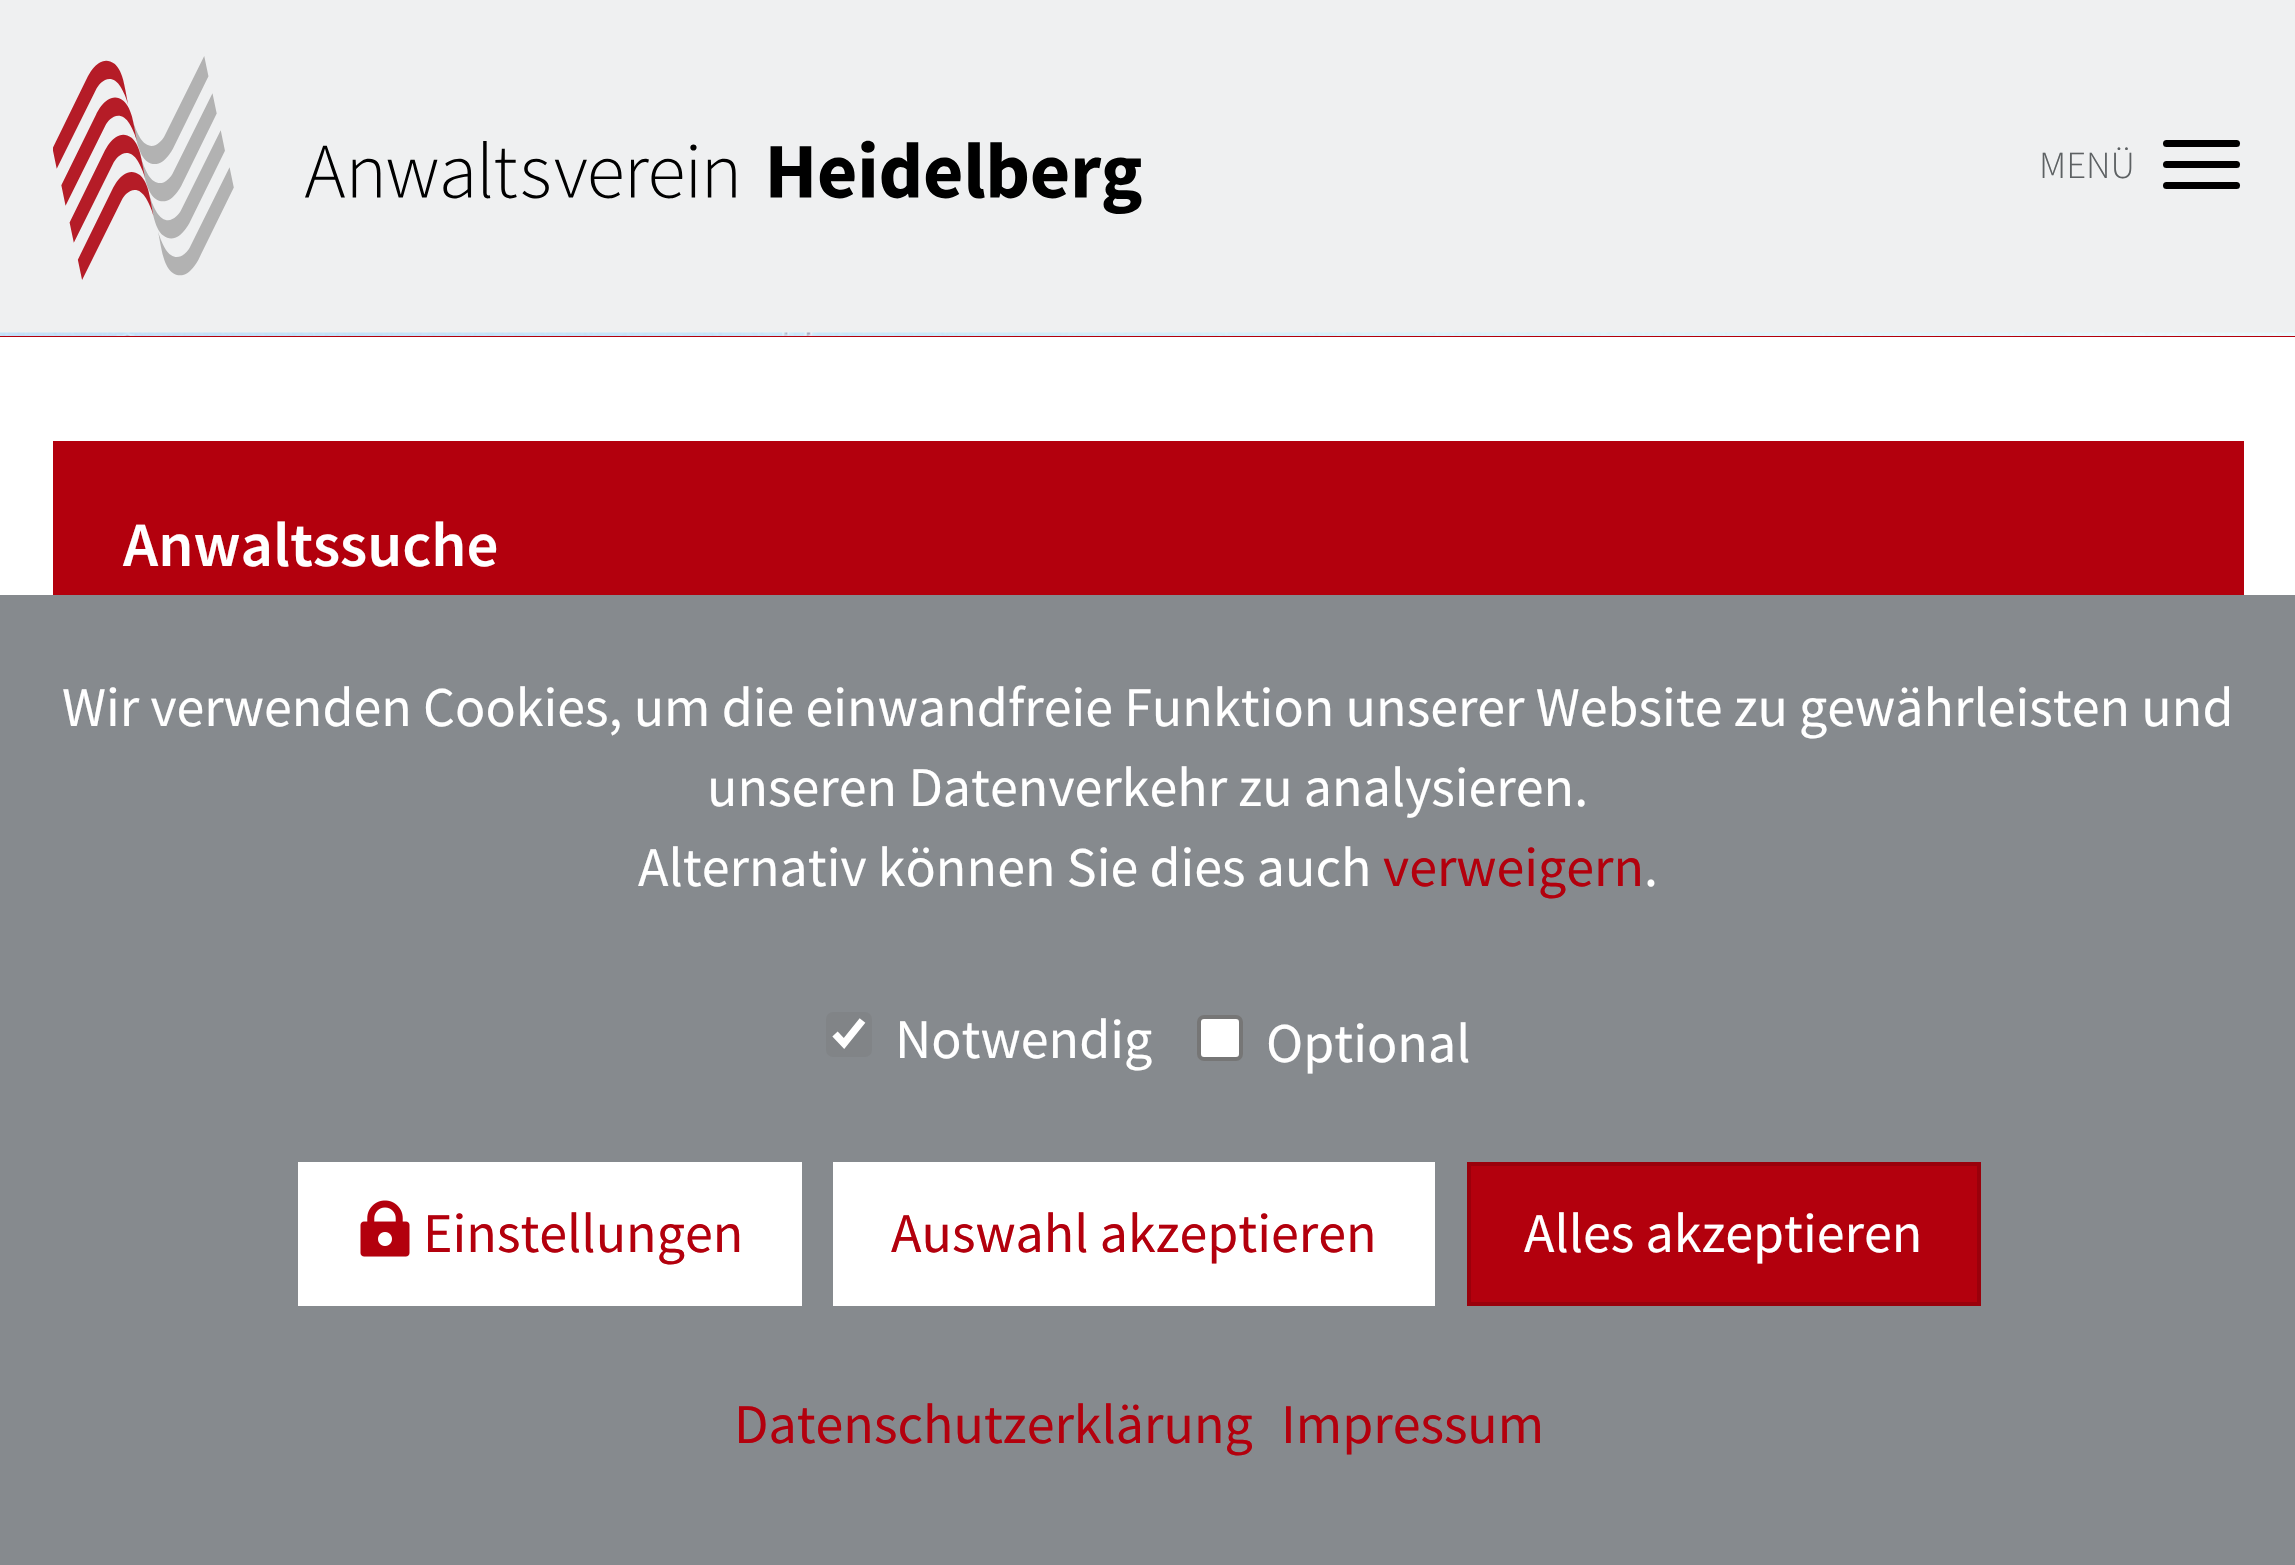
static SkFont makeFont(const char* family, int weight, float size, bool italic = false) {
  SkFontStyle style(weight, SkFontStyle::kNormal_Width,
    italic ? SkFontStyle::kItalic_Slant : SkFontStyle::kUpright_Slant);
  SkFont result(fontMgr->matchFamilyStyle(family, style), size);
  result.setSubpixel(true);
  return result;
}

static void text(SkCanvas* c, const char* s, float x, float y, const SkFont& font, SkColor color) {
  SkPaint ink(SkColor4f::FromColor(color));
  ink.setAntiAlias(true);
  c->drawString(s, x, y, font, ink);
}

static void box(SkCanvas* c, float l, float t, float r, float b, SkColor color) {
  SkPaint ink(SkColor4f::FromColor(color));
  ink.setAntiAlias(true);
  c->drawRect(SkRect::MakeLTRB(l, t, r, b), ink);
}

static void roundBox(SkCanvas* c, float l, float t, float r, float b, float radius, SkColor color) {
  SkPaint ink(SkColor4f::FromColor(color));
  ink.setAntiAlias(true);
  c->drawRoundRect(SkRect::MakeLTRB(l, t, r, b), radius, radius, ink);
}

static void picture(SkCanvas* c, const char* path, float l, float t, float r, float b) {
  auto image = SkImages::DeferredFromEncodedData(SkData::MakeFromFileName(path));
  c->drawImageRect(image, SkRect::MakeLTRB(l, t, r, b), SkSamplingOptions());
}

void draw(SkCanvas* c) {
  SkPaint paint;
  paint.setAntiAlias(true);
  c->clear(0xffffffff);
  box(c, 0, 0, 2295, 333, 0xffeff0f1);
  picture(c, "img_01.png", 53, 56, 1142, 280);
  SkFont face1 = makeFont("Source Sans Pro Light", 300, 38.5f);
  text(c, "MENÜ", 2039, 178, face1, 0xff5d6163);
  roundBox(c, 2163, 140, 2240, 147, 3.5f, 0xff000000);
  roundBox(c, 2163, 161, 2240, 168, 3.5f, 0xff000000);
  roundBox(c, 2163, 182, 2240, 189, 3.5f, 0xff000000);
  box(c, 0, 336, 2295, 337, 0xffb3000d);
  picture(c, "img_02.png", 0, 332, 2295, 336);
  box(c, 53, 441, 2244, 595, 0xffb3000d);
  SkFont face2 = makeFont("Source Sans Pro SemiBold", 600, 63);
  text(c, "Anwaltssuche", 123, 566, face2, 0xffffffff);
  box(c, 0, 595, 2295, 1565, 0xff868a8e);
  SkFont face3 = makeFont("Source Sans Pro", 400, 56);
  text(c, "Wir verwenden Cookies, um die einwandfreie Funktion unserer Website zu gewährleisten und", 62, 726, face3, 0xffffffff);
  text(c, "unseren Datenverkehr zu analysieren.", 707, 806, face3, 0xffffffff);
  text(c, "Alternativ können Sie dies auch", 638, 886, face3, 0xffffffff);
  text(c, "verweigern", 1383, 886, face3, 0xffb3000d);
  text(c, ".", 1644, 886, face3, 0xffffffff);
  roundBox(c, 826, 1012, 872, 1057, 7, 0xff818487);
  paint.setStyle(SkPaint::kStroke_Style);
  paint.setStrokeWidth(7.3f);
  paint.setColor(0xffffffff);
  c->drawPath(SkPathBuilder().moveTo(835, 1034).lineTo(844, 1043.5f).lineTo(862.5f, 1020.5f).detach(), paint);
  text(c, "Notwendig", 895, 1058, face3, 0xffffffff);
  paint.setStyle(SkPaint::kFill_Style);
  c->drawRoundRect(SkRect::MakeLTRB(1199, 1017, 1241, 1059), 5, 5, paint);
  paint.setStyle(SkPaint::kStroke_Style);
  paint.setStrokeWidth(4);
  paint.setColor(0xff767676);
  c->drawRoundRect(SkRect::MakeLTRB(1199, 1017, 1241, 1059), 5, 5, paint);
  text(c, "Optional", 1266, 1062, face3, 0xffffffff);
  box(c, 298, 1162, 802, 1306, 0xffffffff);
  picture(c, "img_03.png", 360, 1200, 410, 1257);
  text(c, "Einstellungen", 423, 1252, face3, 0xffb3000d);
  box(c, 833, 1162, 1435, 1306, 0xffffffff);
  text(c, "Auswahl akzeptieren", 891, 1252, face3, 0xffb3000d);
  paint.setStyle(SkPaint::kFill_Style);
  paint.setColor(0xffb3000d);
  c->drawRect(SkRect::MakeLTRB(1469, 1164, 1979, 1304), paint);
  paint.setStyle(SkPaint::kStroke_Style);
  paint.setColor(0xff9a000b);
  c->drawRect(SkRect::MakeLTRB(1469, 1164, 1979, 1304), paint);
  text(c, "Alles akzeptieren", 1524, 1252, face3, 0xffffffff);
  text(c, "Datenschutzerklärung", 734, 1443, face3, 0xffb3000d);
  text(c, "Impressum", 1281, 1443, face3, 0xffb3000d);
}
